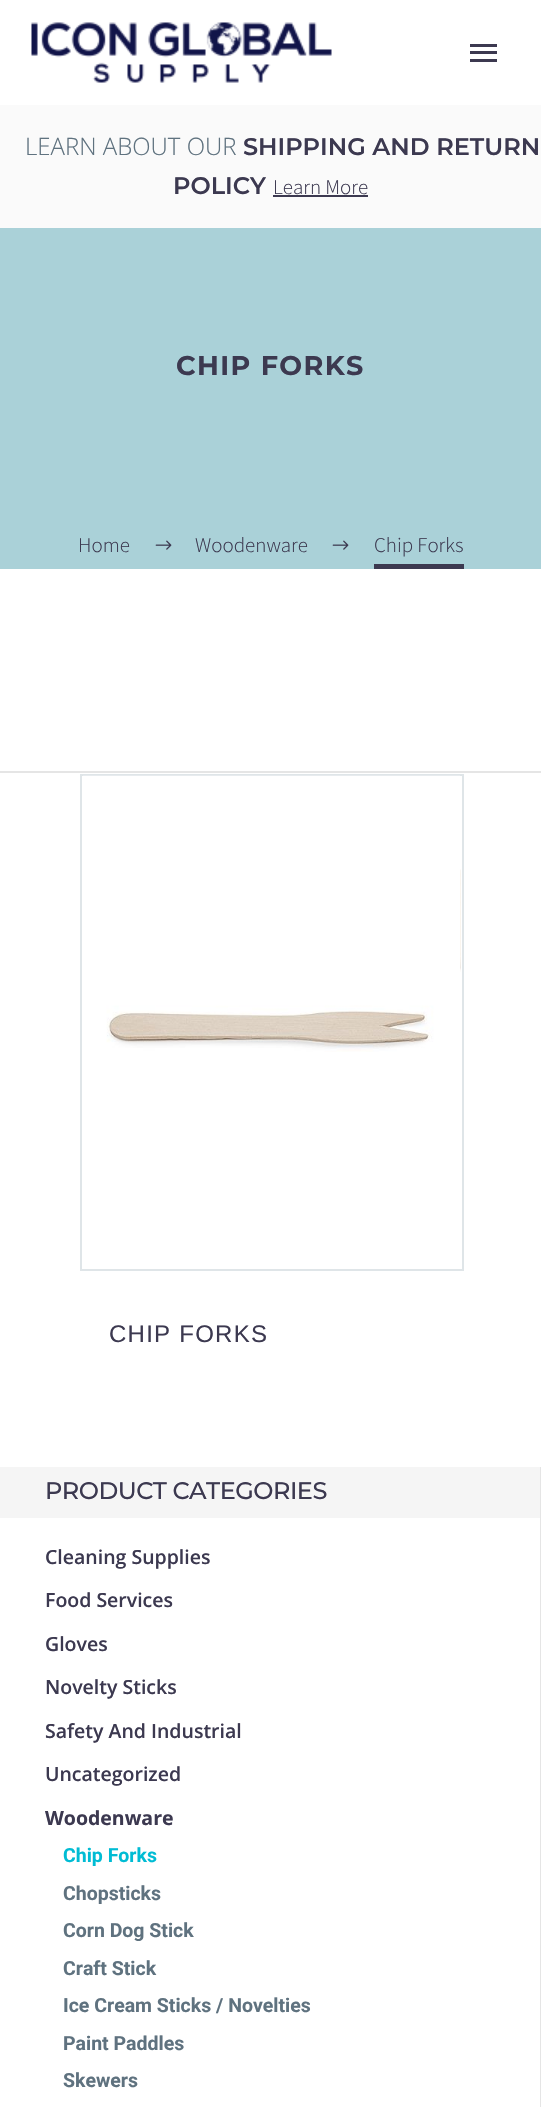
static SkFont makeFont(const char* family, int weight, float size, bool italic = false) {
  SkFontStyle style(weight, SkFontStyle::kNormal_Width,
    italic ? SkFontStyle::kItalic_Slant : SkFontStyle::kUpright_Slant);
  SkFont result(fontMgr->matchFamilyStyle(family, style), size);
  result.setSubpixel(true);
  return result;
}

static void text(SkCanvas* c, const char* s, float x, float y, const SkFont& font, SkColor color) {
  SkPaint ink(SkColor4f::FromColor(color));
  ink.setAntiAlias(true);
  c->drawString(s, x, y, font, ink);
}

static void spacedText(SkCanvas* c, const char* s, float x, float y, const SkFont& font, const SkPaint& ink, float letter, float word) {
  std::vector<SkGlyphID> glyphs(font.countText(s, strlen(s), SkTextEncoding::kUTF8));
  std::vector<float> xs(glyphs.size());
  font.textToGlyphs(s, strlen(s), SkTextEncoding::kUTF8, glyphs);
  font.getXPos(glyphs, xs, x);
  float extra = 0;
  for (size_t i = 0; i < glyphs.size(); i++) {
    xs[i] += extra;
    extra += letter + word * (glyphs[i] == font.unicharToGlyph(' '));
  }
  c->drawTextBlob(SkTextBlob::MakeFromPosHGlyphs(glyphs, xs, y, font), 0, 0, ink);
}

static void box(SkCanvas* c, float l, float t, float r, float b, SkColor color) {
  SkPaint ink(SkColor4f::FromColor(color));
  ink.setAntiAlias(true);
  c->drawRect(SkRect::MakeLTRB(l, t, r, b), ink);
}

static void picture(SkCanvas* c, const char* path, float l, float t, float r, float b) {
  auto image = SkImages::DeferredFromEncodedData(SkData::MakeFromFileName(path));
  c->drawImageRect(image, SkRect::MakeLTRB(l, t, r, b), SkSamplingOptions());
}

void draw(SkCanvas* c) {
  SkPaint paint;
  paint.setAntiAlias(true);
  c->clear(0xffffffff);
  picture(c, "img_01.png", 31, 22, 332, 83);
  box(c, 470, 44, 497, 47, 0xff3c3950);
  box(c, 470, 51, 497, 54, 0xff3c3950);
  box(c, 470, 59, 497, 62, 0xff3c3950);
  box(c, 0, 105, 541, 228, 0xfffafafa);
  SkFont face1 = makeFont("Open Sans", 300, 24);
  text(c, "LEARN ABOUT OUR", 25, 155, face1, 0xff5f727f);
  SkFont face2 = makeFont("Montserrat", 600, 24);
  text(c, "SHIPPING AND RETURN", 243, 155, face2, 0xff3c3950);
  text(c, "POLICY", 173, 194, face2, 0xff3c3950);
  SkFont face3 = makeFont("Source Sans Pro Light", 300, 21);
  text(c, "Learn More", 273, 194, face3, 0xff3c3950);
  box(c, 273, 195, 368, 197, 0xff3c3950);
  box(c, 0, 228, 541, 569, 0xffaad1d8);
  SkFont face4 = makeFont("Montserrat", 700, 27);
  paint.setColor(0xff3c3950);
  spacedText(c, "CHIP FORKS", 176, 375, face4, paint, 1.4f, 0);
  text(c, "Home", 78, 552, face3, 0xff3c3950);
  picture(c, "img_02.png", 155, 540, 172, 550);
  text(c, "Woodenware", 195, 552, face3, 0xff3c3950);
  picture(c, "img_02.png", 332, 540, 349, 550);
  box(c, 374, 564, 464, 569, 0xff3c3950);
  text(c, "Chip Forks", 374, 552, face3, 0xff3c3950);
  box(c, 0, 771, 541, 773, 0xffe5e5e5);
  paint.setStyle(SkPaint::kStroke_Style);
  paint.setStrokeWidth(2);
  paint.setColor(0xffdfe5e8);
  c->drawRect(SkRect::MakeLTRB(81, 775, 463, 1270), paint);
  picture(c, "img_03.png", 83, 775, 460, 1052);
  picture(c, "img_04.png", 460, 869, 461, 972);
  SkFont face5 = makeFont("Liberation Sans", 400, 24);
  paint.setStyle(SkPaint::kFill_Style);
  paint.setColor(0xff3c3950);
  spacedText(c, "CHIP FORKS", 109, 1342, face5, paint, 1.25f, 0);
  box(c, 540, 1467, 541, 2107, 0xffe5e5e5);
  box(c, 0, 1467, 540, 1518, 0xfff5f5f5);
  SkFont face6 = makeFont("Montserrat", 500, 24);
  spacedText(c, "PRODUCT CATEGORIES", 45, 1499, face6, paint, -0.5f, 0);
  SkFont face7 = makeFont("Open Sans", 600, 19.5f);
  text(c, "Cleaning Supplies", 45, 1564, face7, 0xff3c3950);
  text(c, "Food Services", 45, 1607, face7, 0xff3c3950);
  text(c, "Gloves", 45, 1651, face7, 0xff3c3950);
  text(c, "Novelty Sticks", 45, 1694, face7, 0xff3c3950);
  text(c, "Safety And Industrial", 45, 1738, face7, 0xff3c3950);
  text(c, "Uncategorized", 45, 1781, face7, 0xff3c3950);
  SkFont face8 = makeFont("Open Sans", 700, 19.5f);
  text(c, "Woodenware", 45, 1825, face8, 0xff3c3950);
  SkFont face9 = makeFont("Roboto", 700, 19.5f);
  text(c, "Chip Forks", 63, 1862, face9, 0xff00bcd4);
  text(c, "Chopsticks", 63, 1900, face9, 0xff5f727f);
  text(c, "Corn Dog Stick", 63, 1937, face9, 0xff5f727f);
  text(c, "Craft Stick", 63, 1975, face9, 0xff5f727f);
  text(c, "Ice Cream Sticks / Novelties", 63, 2012, face9, 0xff5f727f);
  text(c, "Paint Paddles", 63, 2050, face9, 0xff5f727f);
  text(c, "Skewers", 63, 2087, face9, 0xff5f727f);
}
